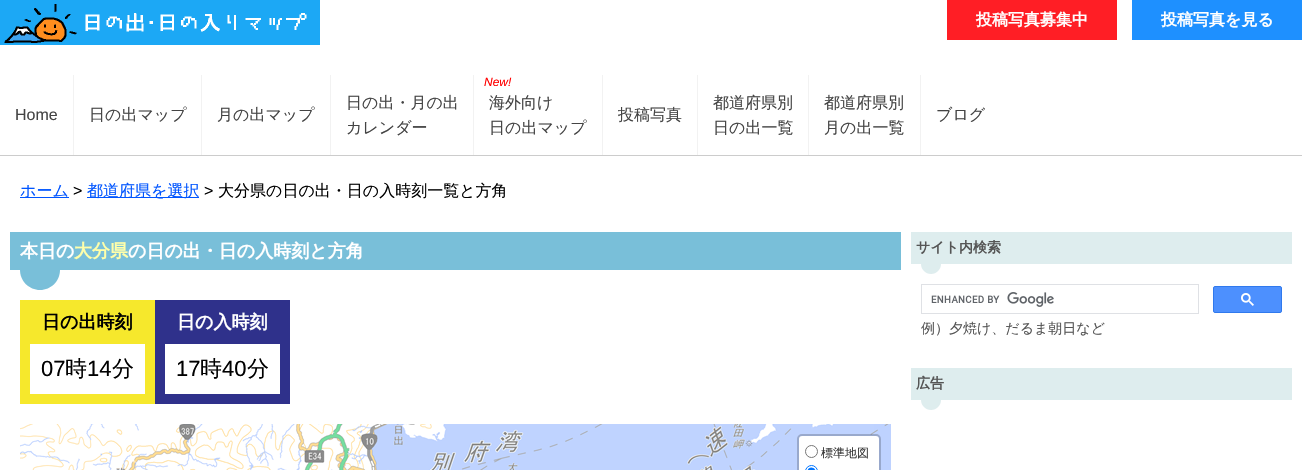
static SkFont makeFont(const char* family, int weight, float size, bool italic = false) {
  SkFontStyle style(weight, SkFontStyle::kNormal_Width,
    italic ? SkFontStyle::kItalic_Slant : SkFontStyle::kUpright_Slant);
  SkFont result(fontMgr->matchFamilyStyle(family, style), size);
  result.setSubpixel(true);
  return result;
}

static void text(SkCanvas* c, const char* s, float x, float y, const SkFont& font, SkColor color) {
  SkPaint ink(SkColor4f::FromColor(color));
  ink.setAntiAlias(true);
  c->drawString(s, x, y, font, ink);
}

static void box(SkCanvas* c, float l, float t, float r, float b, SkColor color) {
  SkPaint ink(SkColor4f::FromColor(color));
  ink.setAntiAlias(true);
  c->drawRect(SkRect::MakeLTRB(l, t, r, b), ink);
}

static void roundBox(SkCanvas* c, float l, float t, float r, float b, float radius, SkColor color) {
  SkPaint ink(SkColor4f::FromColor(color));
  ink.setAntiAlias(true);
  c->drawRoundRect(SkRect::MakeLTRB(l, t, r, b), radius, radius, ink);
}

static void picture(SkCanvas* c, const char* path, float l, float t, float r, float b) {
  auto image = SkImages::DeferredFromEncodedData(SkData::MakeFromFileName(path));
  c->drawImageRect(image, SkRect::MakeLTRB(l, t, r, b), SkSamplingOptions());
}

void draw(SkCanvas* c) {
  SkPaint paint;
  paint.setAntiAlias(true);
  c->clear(0xffffffff);
  picture(c, "img_01.png", 0, 0, 320, 45);
  box(c, 947, 0, 1117, 40, 0xffff1e25);
  SkFont face1 = makeFont("WenQuanYi Zen Hei", 700, 16);
  text(c, "投稿写真募集中", 976, 25, face1, 0xffffffff);
  box(c, 1132, 0, 1302, 40, 0xff1e90ff);
  text(c, "投稿写真を見る", 1161, 25, face1, 0xffffffff);
  box(c, 0, 155, 1302, 156, 0xffcccccc);
  SkFont face2 = makeFont("Liberation Sans", 400, 16);
  text(c, "Home", 15, 120, face2, 0xff444444);
  box(c, 73, 75, 74, 155, 0xfff2f2f2);
  SkFont face3 = makeFont("WenQuanYi Zen Hei", 500, 16);
  text(c, "日の出マップ", 89, 120, face3, 0xff444444);
  box(c, 201, 75, 202, 155, 0xfff2f2f2);
  text(c, "月の出マップ", 217, 120, face3, 0xff444444);
  box(c, 330, 75, 331, 155, 0xfff2f2f2);
  text(c, "日の出・月の出", 346, 108, face3, 0xff444444);
  text(c, "カレンダー", 346, 133, face3, 0xff444444);
  box(c, 473, 75, 474, 155, 0xfff2f2f2);
  SkFont face4 = makeFont("Liberation Sans", 400, 12, true);
  text(c, "New!", 484, 86, face4, 0xffff0000);
  text(c, "海外向け", 489, 108, face3, 0xff444444);
  text(c, "日の出マップ", 489, 133, face3, 0xff444444);
  box(c, 602, 75, 603, 155, 0xfff2f2f2);
  text(c, "投稿写真", 618, 120, face3, 0xff444444);
  box(c, 697, 75, 698, 155, 0xfff2f2f2);
  text(c, "都道府県別", 713, 108, face3, 0xff444444);
  text(c, "日の出一覧", 713, 133, face3, 0xff444444);
  box(c, 808, 75, 809, 155, 0xfff2f2f2);
  text(c, "都道府県別", 824, 108, face3, 0xff444444);
  text(c, "月の出一覧", 824, 133, face3, 0xff444444);
  box(c, 920, 75, 921, 155, 0xfff2f2f2);
  text(c, "ブログ", 936, 120, face3, 0xff444444);
  box(c, 20, 197, 69, 198, 0xff0055ff);
  text(c, "ホーム", 20, 196, face3, 0xff0055ff);
  text(c, ">", 73, 196, face2, 0xff000000);
  box(c, 87, 197, 199, 198, 0xff0055ff);
  text(c, "都道府県を選択", 87, 196, face3, 0xff0055ff);
  text(c, ">", 204, 196, face2, 0xff000000);
  text(c, "大分県の日の出・日の入時刻一覧と方角", 218, 196, face3, 0xff000000);
  box(c, 10, 232, 901, 270, 0xff79bfd9);
  SkFont face5 = makeFont("WenQuanYi Zen Hei", 700, 18);
  text(c, "本日の", 20, 257, face5, 0xffffffff);
  text(c, "大分県", 74, 257, face5, 0xffffffaa);
  text(c, "の日の出・日の入時刻と方角", 128, 257, face5, 0xffffffff);
  paint.setColor(0xff79bfd9);
  c->drawPath(SkPathBuilder().moveTo(20, 270).lineTo(60, 270).cubicTo(60, 281, 51, 290, 40, 290).cubicTo(29, 290, 20, 281, 20, 270).close().detach(), paint);
  box(c, 20, 300, 155, 404, 0xfff6e82c);
  text(c, "日の出時刻", 42, 328, face5, 0xff000000);
  box(c, 30, 344, 145, 394, 0xffffffff);
  SkFont face6 = makeFont("Liberation Sans", 400, 22);
  text(c, "07", 41, 376, face6, 0xff000000);
  SkFont face7 = makeFont("WenQuanYi Zen Hei", 500, 22);
  text(c, "時", 65, 376, face7, 0xff000000);
  text(c, "14", 87, 376, face6, 0xff000000);
  text(c, "分", 112, 376, face7, 0xff000000);
  box(c, 155, 300, 290, 404, 0xff2f318b);
  text(c, "日の入時刻", 177, 328, face5, 0xffffffff);
  box(c, 165, 344, 280, 394, 0xffffffff);
  text(c, "17", 176, 376, face6, 0xff000000);
  text(c, "時", 200, 376, face7, 0xff000000);
  text(c, "40", 222, 376, face6, 0xff000000);
  text(c, "分", 247, 376, face7, 0xff000000);
  picture(c, "img_02.png", 20, 424, 106, 470);
  picture(c, "img_03.png", 106, 424, 362, 470);
  picture(c, "img_04.png", 362, 424, 618, 470);
  picture(c, "img_05.png", 618, 424, 874, 470);
  picture(c, "img_06.png", 874, 424, 891, 470);
  roundBox(c, 799, 436, 879, 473, 3, 0xffffffff);
  paint.setStyle(SkPaint::kStroke_Style);
  paint.setStrokeWidth(2);
  paint.setColor(0x33000000);
  c->drawRoundRect(SkRect::MakeLTRB(798, 435, 880, 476), 4, 4, paint);
  paint.setStrokeWidth(1);
  paint.setColor(0xff767676);
  c->drawCircle(811.5f, 451.5f, 6, paint);
  SkFont face8 = makeFont("WenQuanYi Zen Hei", 500, 12);
  text(c, "標準地図", 821, 457, face8, 0xff333333);
  paint.setColor(0xff0075ff);
  c->drawCircle(811.5f, 471.5f, 6, paint);
  paint.setStyle(SkPaint::kFill_Style);
  c->drawCircle(811.5f, 471.5f, 4, paint);
  box(c, 911, 232, 1292, 264, 0xffdeedee);
  SkFont face9 = makeFont("WenQuanYi Zen Hei", 700, 14);
  text(c, "サイト内検索", 916, 252, face9, 0xff555555);
  paint.setColor(0xffdeedee);
  c->drawPath(SkPathBuilder().moveTo(921, 264).lineTo(941, 264).cubicTo(941, 269.5f, 936.5f, 274, 931, 274).cubicTo(925.5f, 274, 921, 269.5f, 921, 264).close().detach(), paint);
  paint.setStyle(SkPaint::kStroke_Style);
  paint.setColor(0xffdfe1e5);
  c->drawRect(SkRect::MakeLTRB(921.5f, 284.5f, 1198.5f, 313.5f), paint);
  picture(c, "img_07.png", 931, 292, 1054, 307);
  paint.setStyle(SkPaint::kFill_Style);
  paint.setColor(0xff4d90fe);
  c->drawRoundRect(SkRect::MakeLTRB(1213.5f, 286.5f, 1281.5f, 312.5f), 1.5f, 1.5f, paint);
  paint.setStyle(SkPaint::kStroke_Style);
  paint.setColor(0xff3079ed);
  c->drawRoundRect(SkRect::MakeLTRB(1213.5f, 286.5f, 1281.5f, 312.5f), 1.5f, 1.5f, paint);
  picture(c, "img_08.png", 1241, 293, 1254, 306);
  SkFont face10 = makeFont("WenQuanYi Zen Hei", 500, 14);
  text(c, "例）夕焼け、だるま朝日など", 921, 333, face10, 0xff555555);
  box(c, 911, 368, 1292, 400, 0xffdeedee);
  text(c, "広告", 916, 388, face9, 0xff555555);
  paint.setStyle(SkPaint::kFill_Style);
  paint.setColor(0xffdeedee);
  c->drawPath(SkPathBuilder().moveTo(921, 400).lineTo(941, 400).cubicTo(941, 405.5f, 936.5f, 410, 931, 410).cubicTo(925.5f, 410, 921, 405.5f, 921, 400).close().detach(), paint);
}
